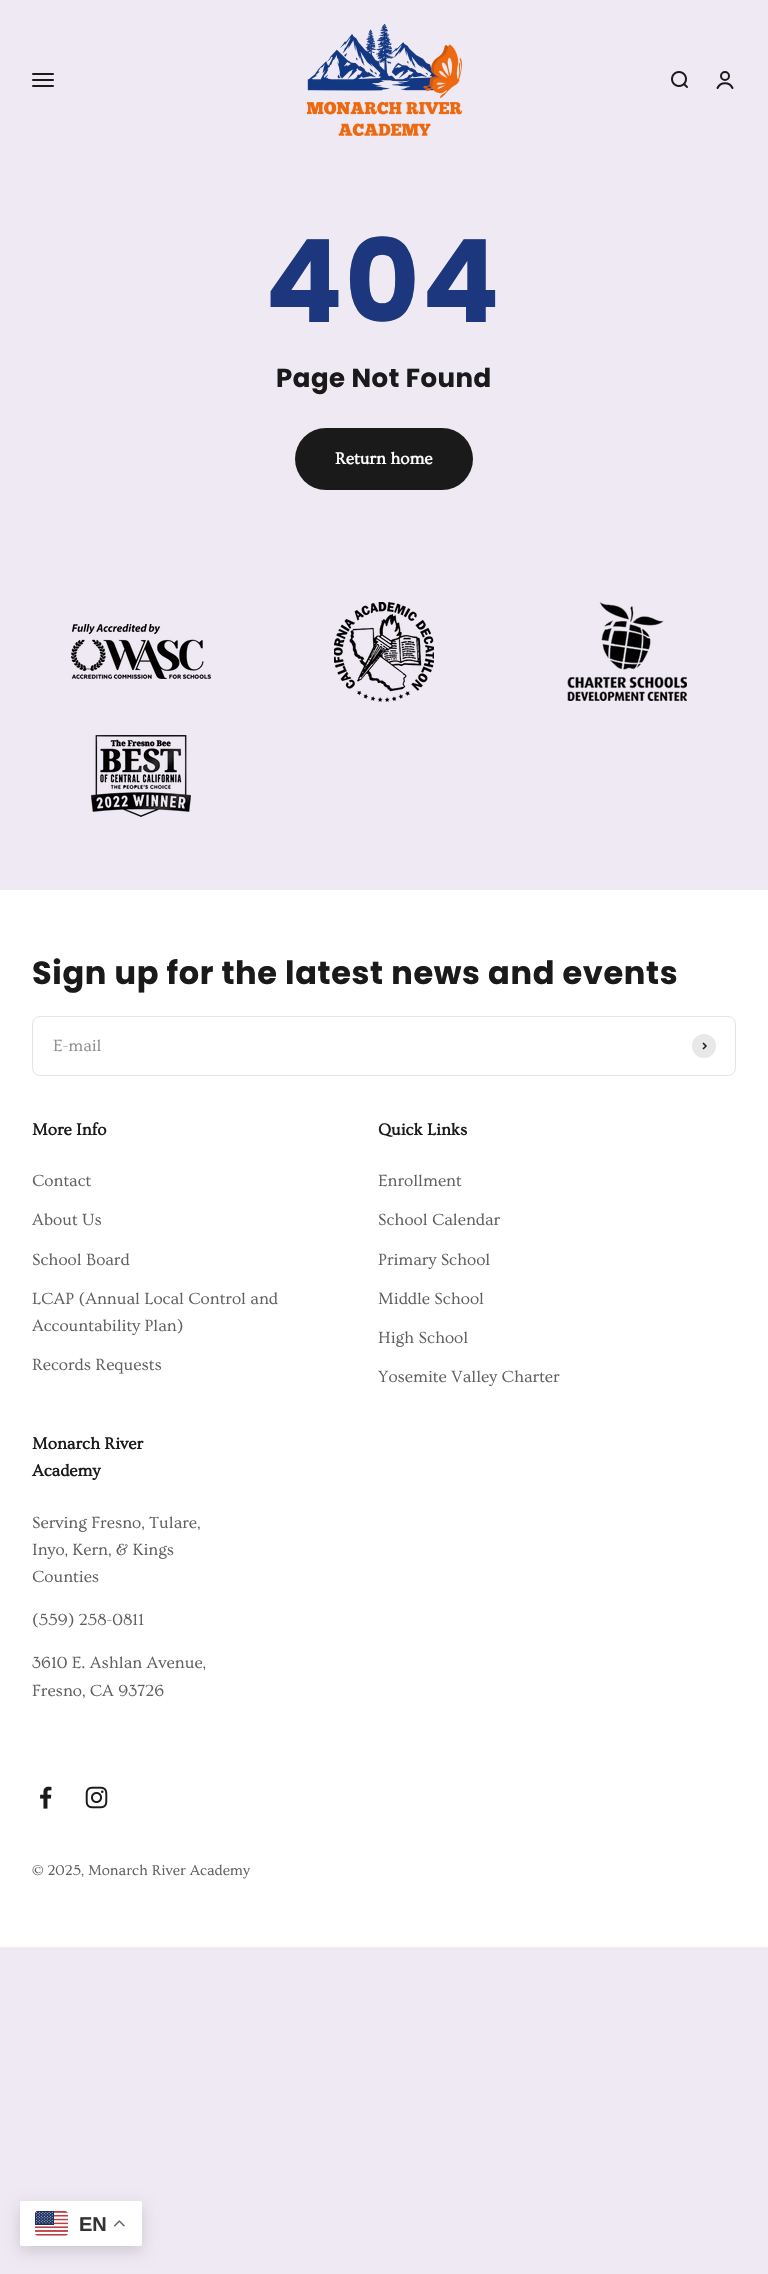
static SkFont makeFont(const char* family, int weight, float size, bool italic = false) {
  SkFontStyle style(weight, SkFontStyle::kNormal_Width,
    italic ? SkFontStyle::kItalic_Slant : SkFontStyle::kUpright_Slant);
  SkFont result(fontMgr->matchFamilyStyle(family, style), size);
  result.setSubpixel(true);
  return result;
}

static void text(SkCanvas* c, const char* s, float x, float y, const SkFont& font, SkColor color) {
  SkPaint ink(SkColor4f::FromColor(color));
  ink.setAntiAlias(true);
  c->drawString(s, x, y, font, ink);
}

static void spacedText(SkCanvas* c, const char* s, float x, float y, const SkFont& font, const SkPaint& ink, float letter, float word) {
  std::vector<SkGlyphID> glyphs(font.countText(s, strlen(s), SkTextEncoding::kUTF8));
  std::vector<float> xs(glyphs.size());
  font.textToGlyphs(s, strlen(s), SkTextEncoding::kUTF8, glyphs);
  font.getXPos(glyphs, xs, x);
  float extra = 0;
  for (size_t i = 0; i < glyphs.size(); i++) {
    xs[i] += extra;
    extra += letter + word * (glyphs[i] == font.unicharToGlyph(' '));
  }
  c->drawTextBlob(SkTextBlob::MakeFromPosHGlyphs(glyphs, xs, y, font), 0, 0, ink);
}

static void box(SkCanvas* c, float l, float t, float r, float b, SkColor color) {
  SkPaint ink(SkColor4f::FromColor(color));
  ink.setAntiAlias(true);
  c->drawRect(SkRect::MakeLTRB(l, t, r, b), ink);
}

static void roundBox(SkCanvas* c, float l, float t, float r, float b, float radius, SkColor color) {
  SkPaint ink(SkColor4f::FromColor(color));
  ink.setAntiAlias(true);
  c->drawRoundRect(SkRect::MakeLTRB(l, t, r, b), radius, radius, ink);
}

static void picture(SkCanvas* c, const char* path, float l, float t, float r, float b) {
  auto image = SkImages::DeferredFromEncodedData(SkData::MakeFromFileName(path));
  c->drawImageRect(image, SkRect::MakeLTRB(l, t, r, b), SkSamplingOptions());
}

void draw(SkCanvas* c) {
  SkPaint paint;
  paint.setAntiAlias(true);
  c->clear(0xffefe9f4);
  picture(c, "img_01.png", 32, 73, 54, 87);
  picture(c, "img_02.png", 307, 24, 462, 136);
  picture(c, "img_03.png", 671, 71, 688, 88);
  paint.setStyle(SkPaint::kStroke_Style);
  paint.setStrokeWidth(2);
  paint.setColor(0xff1a1a1a);
  c->drawCircle(725, 76, 4, paint);
  paint.setStrokeCap(SkPaint::kRound_Cap);
  c->drawPath(SkPathBuilder().moveTo(717.5f, 88).cubicTo(720.5f, 81.5f, 729.5f, 81.5f, 732.5f, 88).detach(), paint);
  SkFont face1 = makeFont("Poppins", 700, 115);
  paint.setStyle(SkPaint::kFill_Style);
  paint.setColor(0xff1d377e);
  spacedText(c, "404", 265, 322, face1, paint, 2, 0);
  SkFont face2 = makeFont("Poppins", 700, 26);
  paint.setColor(0xff1a1a1a);
  spacedText(c, "Page Not Found", 276, 387, face2, paint, 0.5f, 0);
  roundBox(c, 295, 428, 473, 490, 31, 0xff1a1a1a);
  SkFont face3 = makeFont("Ovo", 700, 17);
  text(c, "Return home", 335, 464, face3, 0xffffffff);
  picture(c, "img_04.png", 71, 624, 211, 679);
  picture(c, "img_05.png", 334, 602, 434, 702);
  picture(c, "img_06.png", 567, 602, 687, 701);
  picture(c, "img_07.png", 91, 735, 191, 817);
  box(c, 0, 890, 768, 1947, 0xffffffff);
  SkFont face4 = makeFont("Poppins", 700, 32);
  spacedText(c, "Sign up for the latest news and events", 32, 984, face4, paint, 0.65f, 0);
  paint.setStyle(SkPaint::kStroke_Style);
  paint.setStrokeWidth(1);
  paint.setStrokeCap(SkPaint::kButt_Cap);
  paint.setColor(0xffe4e4e4);
  c->drawRoundRect(SkRect::MakeLTRB(32.5f, 1016.5f, 735.5f, 1075.5f), 7.5f, 7.5f, paint);
  SkFont face5 = makeFont("Ovo", 400, 17);
  text(c, "E-mail", 53, 1051, face5, 0xff8d8d8d);
  paint.setStyle(SkPaint::kFill_Style);
  paint.setColor(0xffe8e8e8);
  c->drawCircle(704, 1046, 12, paint);
  paint.setStyle(SkPaint::kStroke_Style);
  paint.setStrokeWidth(1.5f);
  paint.setColor(0xff1a1a1a);
  c->drawPath(SkPathBuilder().moveTo(703, 1049).lineTo(706, 1046).lineTo(703, 1043).detach(), paint);
  text(c, "More Info", 32, 1135, face3, 0xff1a1a1a);
  text(c, "Contact", 32, 1186, face5, 0xff5f5f5f);
  text(c, "About Us", 32, 1225, face5, 0xff5f5f5f);
  text(c, "School Board", 32, 1265, face5, 0xff5f5f5f);
  text(c, "LCAP (Annual Local Control and", 32, 1304, face5, 0xff5f5f5f);
  text(c, "Accountability Plan)", 32, 1331, face5, 0xff5f5f5f);
  text(c, "Records Requests", 32, 1370, face5, 0xff5f5f5f);
  text(c, "Quick Links", 378, 1135, face3, 0xff1a1a1a);
  text(c, "Enrollment", 378, 1186, face5, 0xff5f5f5f);
  text(c, "School Calendar", 378, 1225, face5, 0xff5f5f5f);
  text(c, "Primary School", 378, 1265, face5, 0xff5f5f5f);
  text(c, "Middle School", 378, 1304, face5, 0xff5f5f5f);
  text(c, "High School", 378, 1343, face5, 0xff5f5f5f);
  text(c, "Yosemite Valley Charter", 378, 1382, face5, 0xff5f5f5f);
  text(c, "Monarch River", 32, 1449, face3, 0xff1a1a1a);
  text(c, "Academy", 32, 1476, face3, 0xff1a1a1a);
  text(c, "Serving Fresno, Tulare,", 32, 1528, face5, 0xff5f5f5f);
  text(c, "Inyo, Kern, & Kings", 32, 1555, face5, 0xff5f5f5f);
  text(c, "Counties", 32, 1582, face5, 0xff5f5f5f);
  text(c, "(559) 258-0811", 32, 1625, face5, 0xff5f5f5f);
  text(c, "3610 E. Ashlan Avenue,", 32, 1668, face5, 0xff5f5f5f);
  text(c, "Fresno, CA 93726", 32, 1696, face5, 0xff5f5f5f);
  picture(c, "img_08.png", 40, 1786, 52, 1809);
  picture(c, "img_09.png", 85, 1786, 108, 1809);
  SkFont face6 = makeFont("Ovo", 400, 15);
  text(c, "© 2025, Monarch River Academy", 32, 1875, face6, 0xff5f5f5f);
  paint.setStyle(SkPaint::kFill_Style);
  paint.setColor(0x26000000);
  paint.setMaskFilter(SkMaskFilter::MakeBlur(kNormal_SkBlurStyle, 7.5f));
  c->drawRoundRect(SkRect::MakeLTRB(20, 2206, 142, 2251), 2, 2, paint);
  paint.setMaskFilter(nullptr);
  roundBox(c, 20, 2201, 142, 2246, 2, 0xffffffff);
  picture(c, "img_10.png", 35, 2211, 68, 2236);
  SkFont face7 = makeFont("Liberation Sans", 700, 20);
  text(c, "EN", 79, 2231, face7, 0xff333333);
  picture(c, "img_11.png", 114, 2220, 125, 2227);
}
